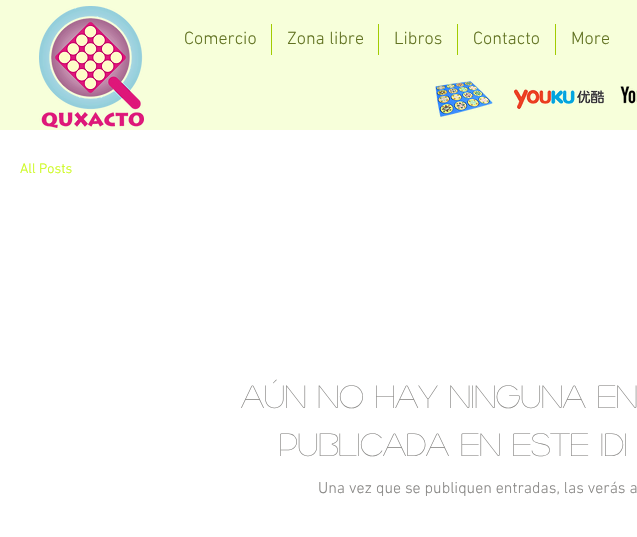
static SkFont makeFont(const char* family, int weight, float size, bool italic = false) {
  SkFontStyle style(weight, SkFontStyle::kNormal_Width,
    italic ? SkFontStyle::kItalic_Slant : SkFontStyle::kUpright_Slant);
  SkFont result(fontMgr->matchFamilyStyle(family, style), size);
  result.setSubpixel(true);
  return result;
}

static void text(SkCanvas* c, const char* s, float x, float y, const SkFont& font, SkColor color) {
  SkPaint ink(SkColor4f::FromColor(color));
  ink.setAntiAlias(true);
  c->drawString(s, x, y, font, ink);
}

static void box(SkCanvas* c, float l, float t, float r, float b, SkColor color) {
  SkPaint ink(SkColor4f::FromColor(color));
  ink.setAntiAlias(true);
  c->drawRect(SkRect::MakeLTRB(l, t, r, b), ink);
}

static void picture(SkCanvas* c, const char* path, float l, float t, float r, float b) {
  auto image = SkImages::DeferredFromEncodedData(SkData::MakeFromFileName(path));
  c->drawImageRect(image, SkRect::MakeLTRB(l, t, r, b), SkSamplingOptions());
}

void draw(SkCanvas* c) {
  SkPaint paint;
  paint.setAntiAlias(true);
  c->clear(0xfff7ffda);
  picture(c, "img_01.png", 39, 6, 144, 128);
  SkFont face1 = makeFont("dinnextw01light", 300, 18);
  text(c, "Comercio", 184, 44, face1, 0xff617221);
  box(c, 271, 24, 272, 55, 0xffa2cc01);
  text(c, "Zona libre", 287, 44, face1, 0xff617221);
  box(c, 378, 24, 379, 55, 0xffa2cc01);
  text(c, "Libros", 394, 44, face1, 0xff617221);
  box(c, 457, 24, 458, 55, 0xffa2cc01);
  text(c, "Contacto", 473, 44, face1, 0xff617221);
  box(c, 555, 24, 556, 55, 0xffa2cc01);
  text(c, "More", 571, 44, face1, 0xff617221);
  picture(c, "img_02.png", 435, 81, 493, 117);
  picture(c, "img_03.png", 514, 89, 604, 109);
  picture(c, "img_04.png", 620, 86, 637, 104);
  box(c, 0, 130, 637, 537, 0xffffffff);
  SkFont face2 = makeFont("dinnextw01light", 300, 14);
  text(c, "All Posts", 20, 173, face2, 0xffcbfa17);
  SkFont face3 = makeFont("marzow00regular", 400, 32);
  text(c, "Aún no hay ninguna en", 241, 408, face3, 0xff888785);
  text(c, "publicada en este idi", 279, 456, face3, 0xff888785);
  SkFont face4 = makeFont("dinnextw01light", 300, 16);
  text(c, "Una vez que se publiquen entradas, las verás a", 318, 493, face4, 0xff888785);
}
